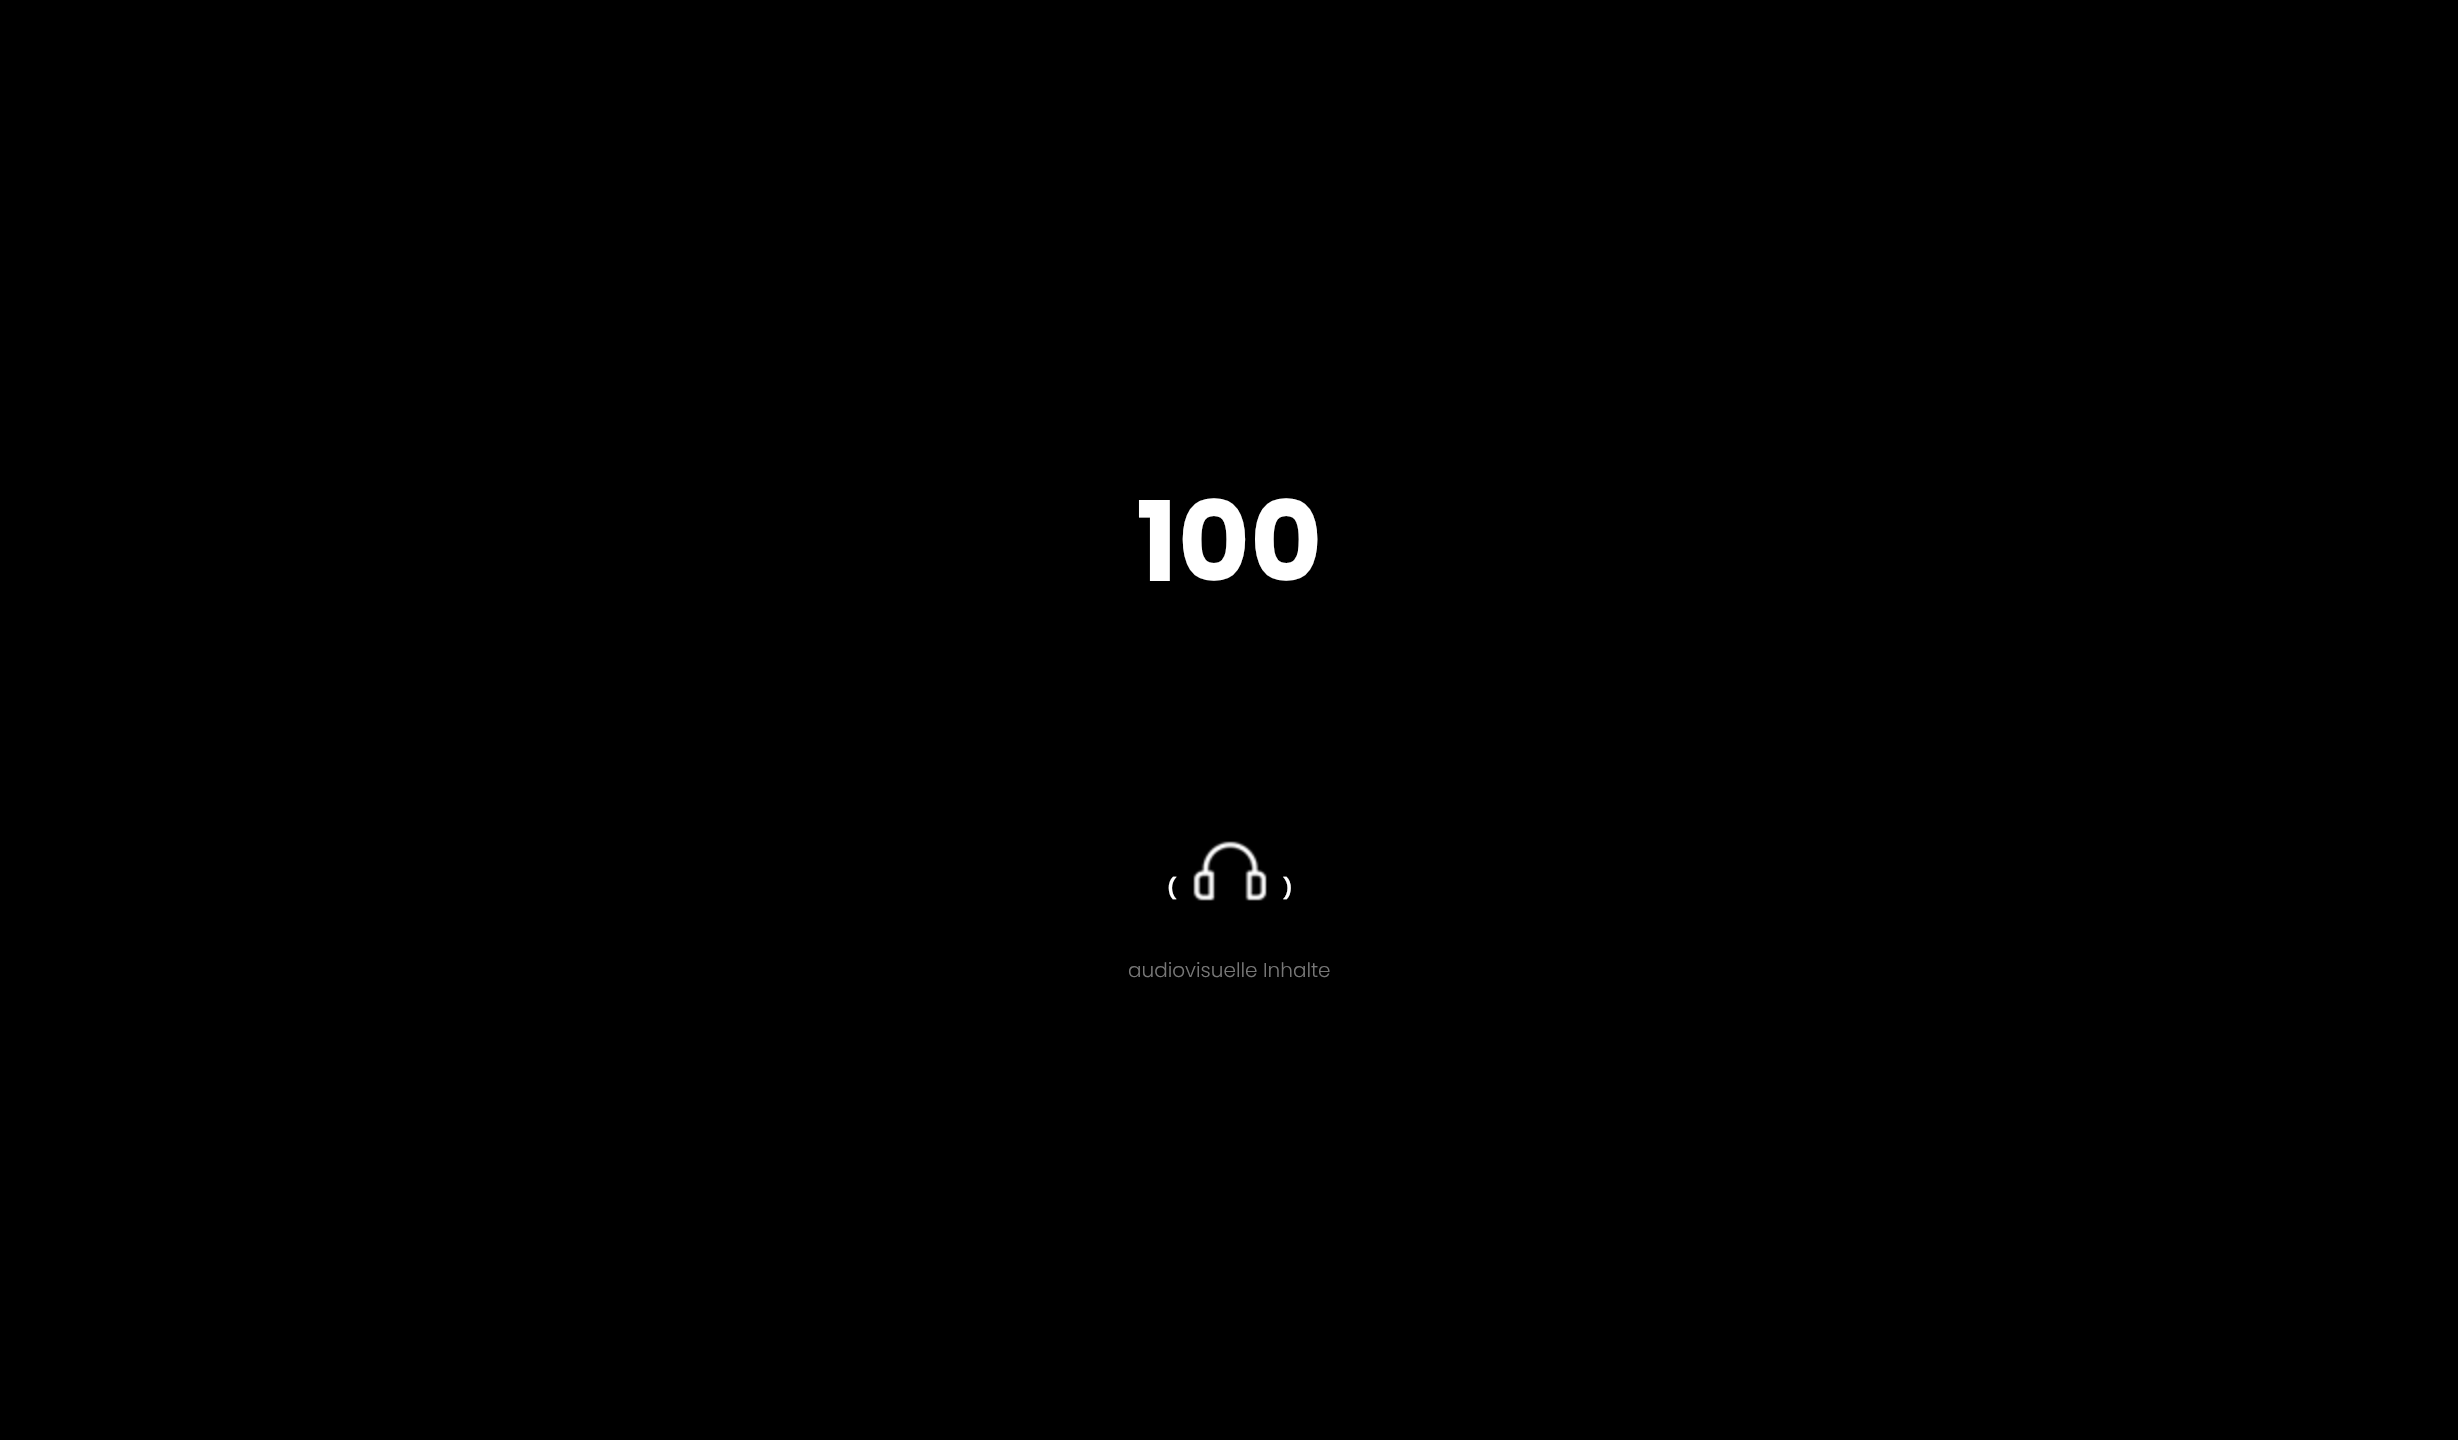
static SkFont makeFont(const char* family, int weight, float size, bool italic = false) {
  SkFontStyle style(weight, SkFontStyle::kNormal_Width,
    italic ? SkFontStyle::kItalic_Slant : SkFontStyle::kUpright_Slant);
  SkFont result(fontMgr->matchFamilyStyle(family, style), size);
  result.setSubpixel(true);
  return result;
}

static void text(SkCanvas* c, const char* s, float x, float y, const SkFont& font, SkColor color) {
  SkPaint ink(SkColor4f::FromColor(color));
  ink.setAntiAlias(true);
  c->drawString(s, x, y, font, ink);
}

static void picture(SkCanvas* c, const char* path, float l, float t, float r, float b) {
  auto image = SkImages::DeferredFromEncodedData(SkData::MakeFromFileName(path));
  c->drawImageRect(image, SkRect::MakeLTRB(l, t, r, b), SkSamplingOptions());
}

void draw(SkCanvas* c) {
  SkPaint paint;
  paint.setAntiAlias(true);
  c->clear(0xff000000);
  SkFont face1 = makeFont("Poppins", 700, 111);
  text(c, "100", 1136, 581, face1, 0xffffffff);
  picture(c, "img_01.png", 1193, 841, 1267, 901);
  SkFont face2 = makeFont("Poppins", 700, 20);
  text(c, "(", 1167, 895, face2, 0xffffffff);
  text(c, ")", 1283, 895, face2, 0xffffffff);
  SkFont face3 = makeFont("Poppins", 300, 20);
  text(c, "audiovisuelle Inhalte", 1128, 977, face3, 0xff777777);
}
